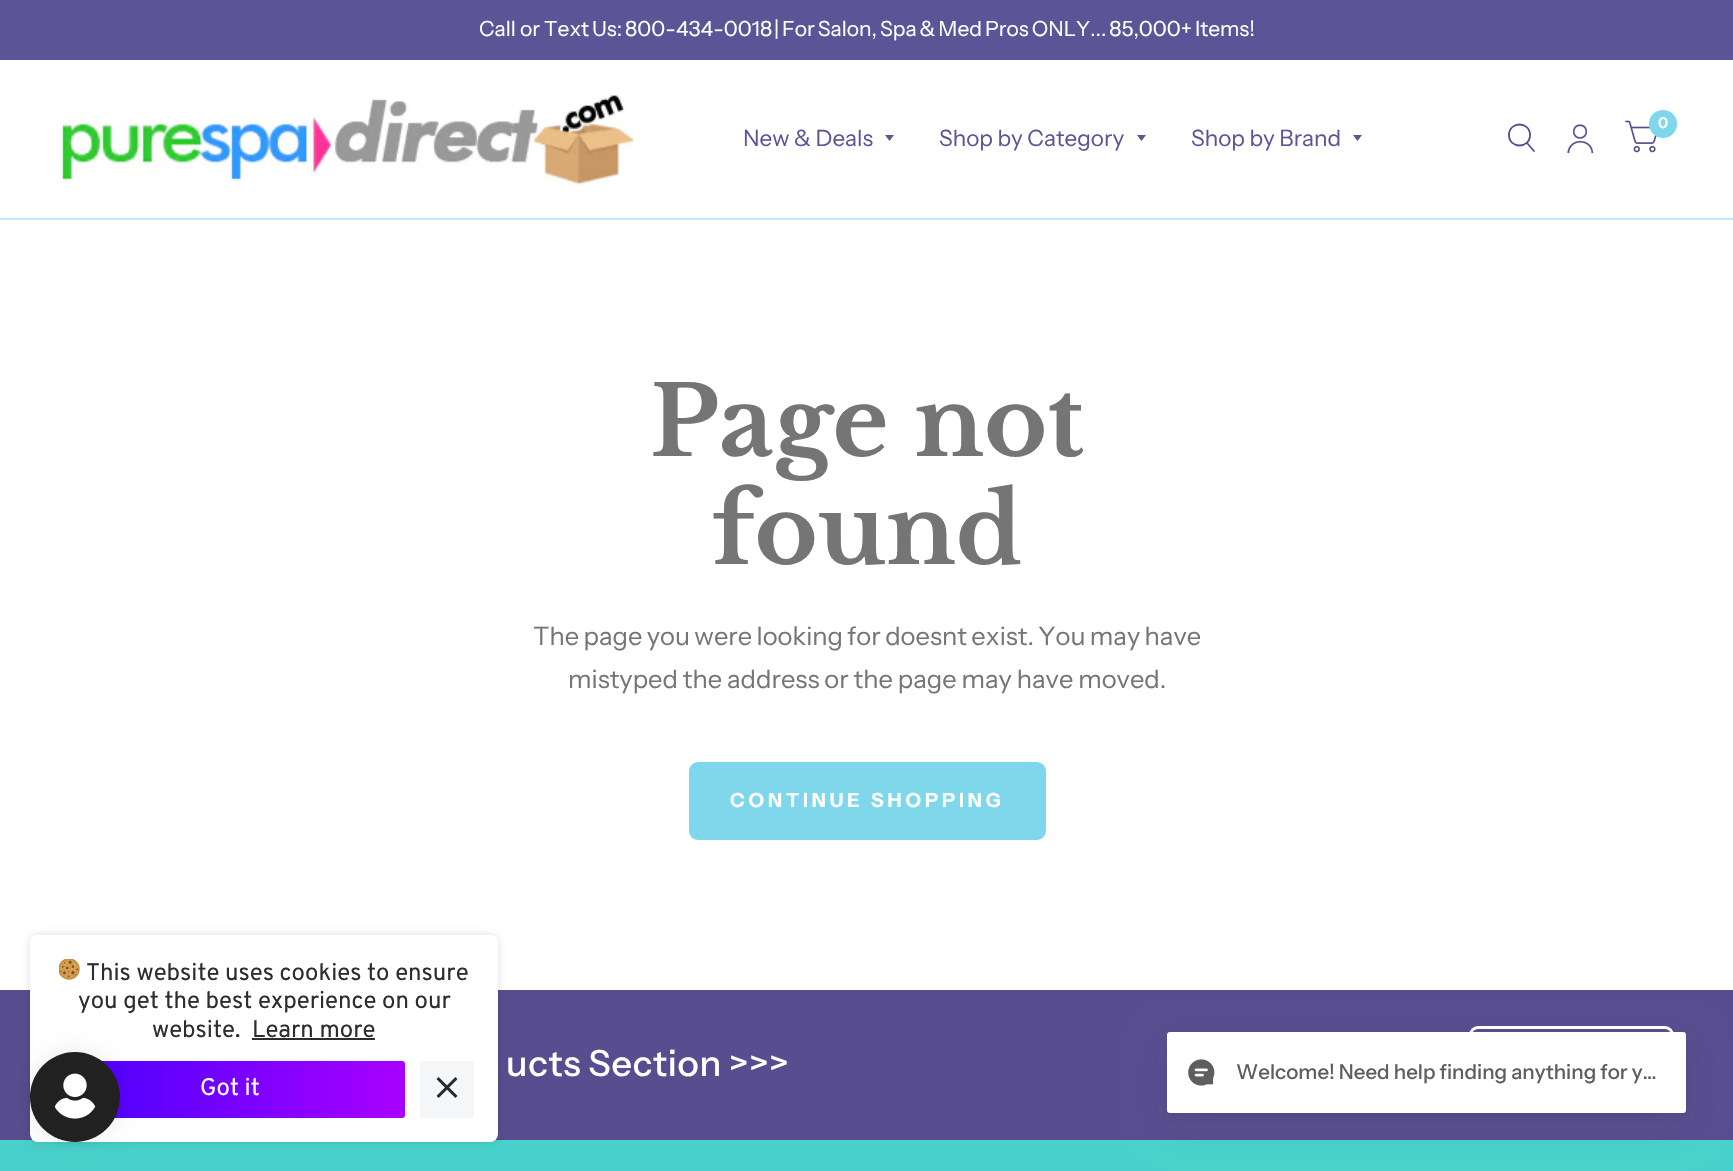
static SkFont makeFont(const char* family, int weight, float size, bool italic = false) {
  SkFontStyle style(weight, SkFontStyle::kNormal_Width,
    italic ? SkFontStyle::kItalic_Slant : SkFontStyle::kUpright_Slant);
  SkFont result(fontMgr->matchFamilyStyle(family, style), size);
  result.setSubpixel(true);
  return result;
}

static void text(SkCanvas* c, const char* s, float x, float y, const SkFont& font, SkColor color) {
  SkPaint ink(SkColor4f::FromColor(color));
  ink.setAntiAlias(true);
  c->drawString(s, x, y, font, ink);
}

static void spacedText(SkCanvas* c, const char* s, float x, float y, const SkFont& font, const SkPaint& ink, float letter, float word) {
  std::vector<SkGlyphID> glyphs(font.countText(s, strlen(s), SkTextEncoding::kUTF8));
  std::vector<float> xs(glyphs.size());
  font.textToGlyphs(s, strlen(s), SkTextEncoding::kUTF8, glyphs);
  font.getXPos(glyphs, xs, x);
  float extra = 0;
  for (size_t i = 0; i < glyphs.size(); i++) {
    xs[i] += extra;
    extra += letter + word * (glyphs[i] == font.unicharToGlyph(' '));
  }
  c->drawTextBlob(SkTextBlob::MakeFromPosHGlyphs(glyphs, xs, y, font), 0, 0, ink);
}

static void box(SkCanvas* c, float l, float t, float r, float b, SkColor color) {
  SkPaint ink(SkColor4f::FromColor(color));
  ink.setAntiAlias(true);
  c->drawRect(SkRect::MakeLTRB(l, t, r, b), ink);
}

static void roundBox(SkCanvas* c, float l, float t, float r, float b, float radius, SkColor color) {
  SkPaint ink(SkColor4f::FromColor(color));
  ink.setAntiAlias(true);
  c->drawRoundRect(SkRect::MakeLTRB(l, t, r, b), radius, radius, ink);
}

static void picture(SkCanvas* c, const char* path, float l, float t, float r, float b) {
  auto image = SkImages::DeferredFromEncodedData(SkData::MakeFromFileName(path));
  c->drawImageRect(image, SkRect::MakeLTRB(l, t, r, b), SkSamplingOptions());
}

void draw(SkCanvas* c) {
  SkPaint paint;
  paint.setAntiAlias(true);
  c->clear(0xffffffff);
  box(c, 0, 990, 1733, 1140, 0xff584d8f);
  box(c, 0, 1140, 1733, 1171, 0xff48d1cc);
  roundBox(c, 30, 935, 498, 1142, 8, 0xffffffff);
  c->save();
  c->clipPath(SkPathBuilder(SkPathFillType::kEvenOdd).moveTo(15, 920).lineTo(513, 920).lineTo(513, 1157).lineTo(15, 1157).close().moveTo(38, 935).lineTo(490, 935).cubicTo(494.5f, 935, 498, 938.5f, 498, 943).lineTo(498, 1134).cubicTo(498, 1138.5f, 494.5f, 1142, 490, 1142).lineTo(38, 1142).cubicTo(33.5f, 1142, 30, 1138.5f, 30, 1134).lineTo(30, 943).cubicTo(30, 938.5f, 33.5f, 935, 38, 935).close().detach(), true);
  paint.setColor(0x1f000000);
  paint.setMaskFilter(SkMaskFilter::MakeBlur(kNormal_SkBlurStyle, 4.5f));
  c->drawRoundRect(SkRect::MakeLTRB(30, 935, 498, 1142), 8, 8, paint);
  paint.setMaskFilter(nullptr);
  c->restore();
  {
    const SkColor colors[] = {0xff4401ff, 0xffa901ff};
    const float stops[] = {0, 1};
    const SkPoint ends[] = {{54, 1089}, {405, 1089}};
    paint.setShader(SkGradientShader::MakeLinear(ends, colors, stops, 2, SkTileMode::kClamp));
    paint.setAlpha(255);
  }
  c->drawRoundRect(SkRect::MakeLTRB(54, 1061, 405, 1118), 3, 3, paint);
  paint.setShader(nullptr);
  paint.setColor(0x14000000);
  paint.setMaskFilter(SkMaskFilter::MakeBlur(kNormal_SkBlurStyle, 11));
  c->drawRoundRect(SkRect::MakeLTRB(30, 1052, 120, 1142), 45, 45, paint);
  paint.setMaskFilter(nullptr);
  paint.setColor(0xff212121);
  c->drawCircle(75, 1097, 45, paint);
  picture(c, "img_01.png", 54, 1073, 96, 1119);
  picture(c, "img_02.png", 59, 959, 80, 980);
  SkFont face1 = makeFont("Overpass", 400, 24);
  text(c, "This website uses cookies to ensure", 86, 980, face1, 0xff2d2d2d);
  text(c, "you get the best experience on our", 78, 1008, face1, 0xff2d2d2d);
  text(c, "website.", 152, 1037, face1, 0xff2d2d2d);
  text(c, "Learn more", 252, 1037, face1, 0xff2d2d2d);
  box(c, 252, 1038, 375, 1040, 0xff2d2d2d);
  text(c, "Got it", 200, 1095, face1, 0xffffffff);
  roundBox(c, 420, 1061, 474, 1118, 3, 0xfff4f6f8);
  picture(c, "img_03.png", 436, 1077, 458, 1098);
  box(c, 0, 0, 1733, 60, 0xff5b5497);
  SkFont face2 = makeFont("Instrument Sans", 400, 21);
  text(c, "Call or", 479, 36, face2, 0xffffffff);
  paint.setColor(0xffffffff);
  spacedText(c, "Text Us: 800-434-0018", 544, 36, face2, paint, 0, -1.25f);
  spacedText(c, "| For Salon, Spa & Med Pros ONLY... 85,000+ Items!", 774, 36, face2, paint, 0, -1.25f);
  box(c, 0, 218, 1733, 220, 0xffbce7fd);
  picture(c, "img_04.png", 60, 95, 634, 187);
  paint.setStyle(SkPaint::kStroke_Style);
  paint.setStrokeWidth(1.8f);
  paint.setStrokeCap(SkPaint::kRound_Cap);
  paint.setStrokeJoin(SkPaint::kRound_Join);
  paint.setColor(0xff584d8f);
  c->drawPath(SkPathBuilder().moveTo(1527, 143).lineTo(1534, 151).moveTo(1530, 135).cubicTo(1530, 149, 1509, 149, 1509, 135).cubicTo(1509, 121, 1530, 121, 1530, 135).close().detach(), paint);
  picture(c, "img_05.png", 1567, 124, 1594, 154);
  picture(c, "img_06.png", 1625, 120, 1657, 153);
  paint.setStyle(SkPaint::kFill_Style);
  paint.setColor(0xff7fd7eb);
  c->drawCircle(1663, 124, 14, paint);
  SkFont face3 = makeFont("Instrument Sans", 600, 15);
  text(c, "0", 1658, 128, face3, 0xffffffff);
  SkFont face4 = makeFont("Instrument Sans", 400, 22.5f);
  text(c, "New & Deals", 743, 146, face4, 0xff5b5497);
  paint.setColor(0xff5b5497);
  c->drawPath(SkPathBuilder().moveTo(885, 135).lineTo(894, 135).lineTo(889.5f, 141).close().detach(), paint);
  text(c, "Shop by Category", 939, 146, face4, 0xff5b5497);
  c->drawPath(SkPathBuilder().moveTo(1137, 135).lineTo(1146, 135).lineTo(1141.5f, 141).close().detach(), paint);
  text(c, "Shop by Brand", 1191, 146, face4, 0xff5b5497);
  c->drawPath(SkPathBuilder().moveTo(1353, 135).lineTo(1362, 135).lineTo(1357.5f, 141).close().detach(), paint);
  SkFont face5 = makeFont("Libre Baskerville", 700, 96);
  text(c, "Page not", 650, 456, face5, 0xff757575);
  text(c, "found", 712, 564, face5, 0xff757575);
  SkFont face6 = makeFont("Instrument Sans", 400, 25.5f);
  paint.setColor(0xff757575);
  spacedText(c, "The page you were looking for doesnt exist. You may have", 533, 645, face6, paint, 0, -0.75f);
  spacedText(c, "mistyped the address or the page may have moved.", 568, 688, face6, paint, 0, -0.25f);
  roundBox(c, 689, 762, 1046, 840, 9, 0xff7fd7eb);
  SkFont face7 = makeFont("Instrument Sans", 700, 19.5f);
  paint.setColor(0xffffffff);
  spacedText(c, "CONTINUE SHOPPING", 730, 807, face7, paint, 3.9f, 0);
  SkFont face8 = makeFont("Instrument Sans", 500, 36);
  spacedText(c, "ucts Section >>>", 506, 1076, face8, paint, 0.75f, -1);
  paint.setStyle(SkPaint::kStroke_Style);
  paint.setStrokeWidth(3);
  paint.setStrokeCap(SkPaint::kButt_Cap);
  paint.setStrokeJoin(SkPaint::kMiter_Join);
  c->drawRoundRect(SkRect::MakeLTRB(1470.5f, 1027.5f, 1672.5f, 1102.5f), 7.5f, 7.5f, paint);
  paint.setStyle(SkPaint::kFill_Style);
  paint.setColor(0x14373f47);
  paint.setMaskFilter(SkMaskFilter::MakeBlur(kNormal_SkBlurStyle, 19));
  c->drawRoundRect(SkRect::MakeLTRB(1167, 1044, 1686, 1127), 3, 3, paint);
  paint.setMaskFilter(nullptr);
  paint.setMaskFilter(SkMaskFilter::MakeBlur(kNormal_SkBlurStyle, 3));
  c->drawRoundRect(SkRect::MakeLTRB(1167, 1038, 1686, 1121), 3, 3, paint);
  paint.setMaskFilter(nullptr);
  paint.setStyle(SkPaint::kStroke_Style);
  paint.setStrokeWidth(2);
  paint.setColor(0x0a373f47);
  c->drawRect(SkRect::MakeLTRB(1167, 1032, 1687, 1114), paint);
  roundBox(c, 1167, 1032, 1686, 1113, 3, 0xffffffff);
  picture(c, "img_07.png", 1188, 1059, 1215, 1086);
  SkFont face9 = makeFont("Instrument Sans", 500, 20.5f);
  text(c, "Welcome! Need help finding anything for y…", 1236, 1079, face9, 0xff5d5e60);
}
